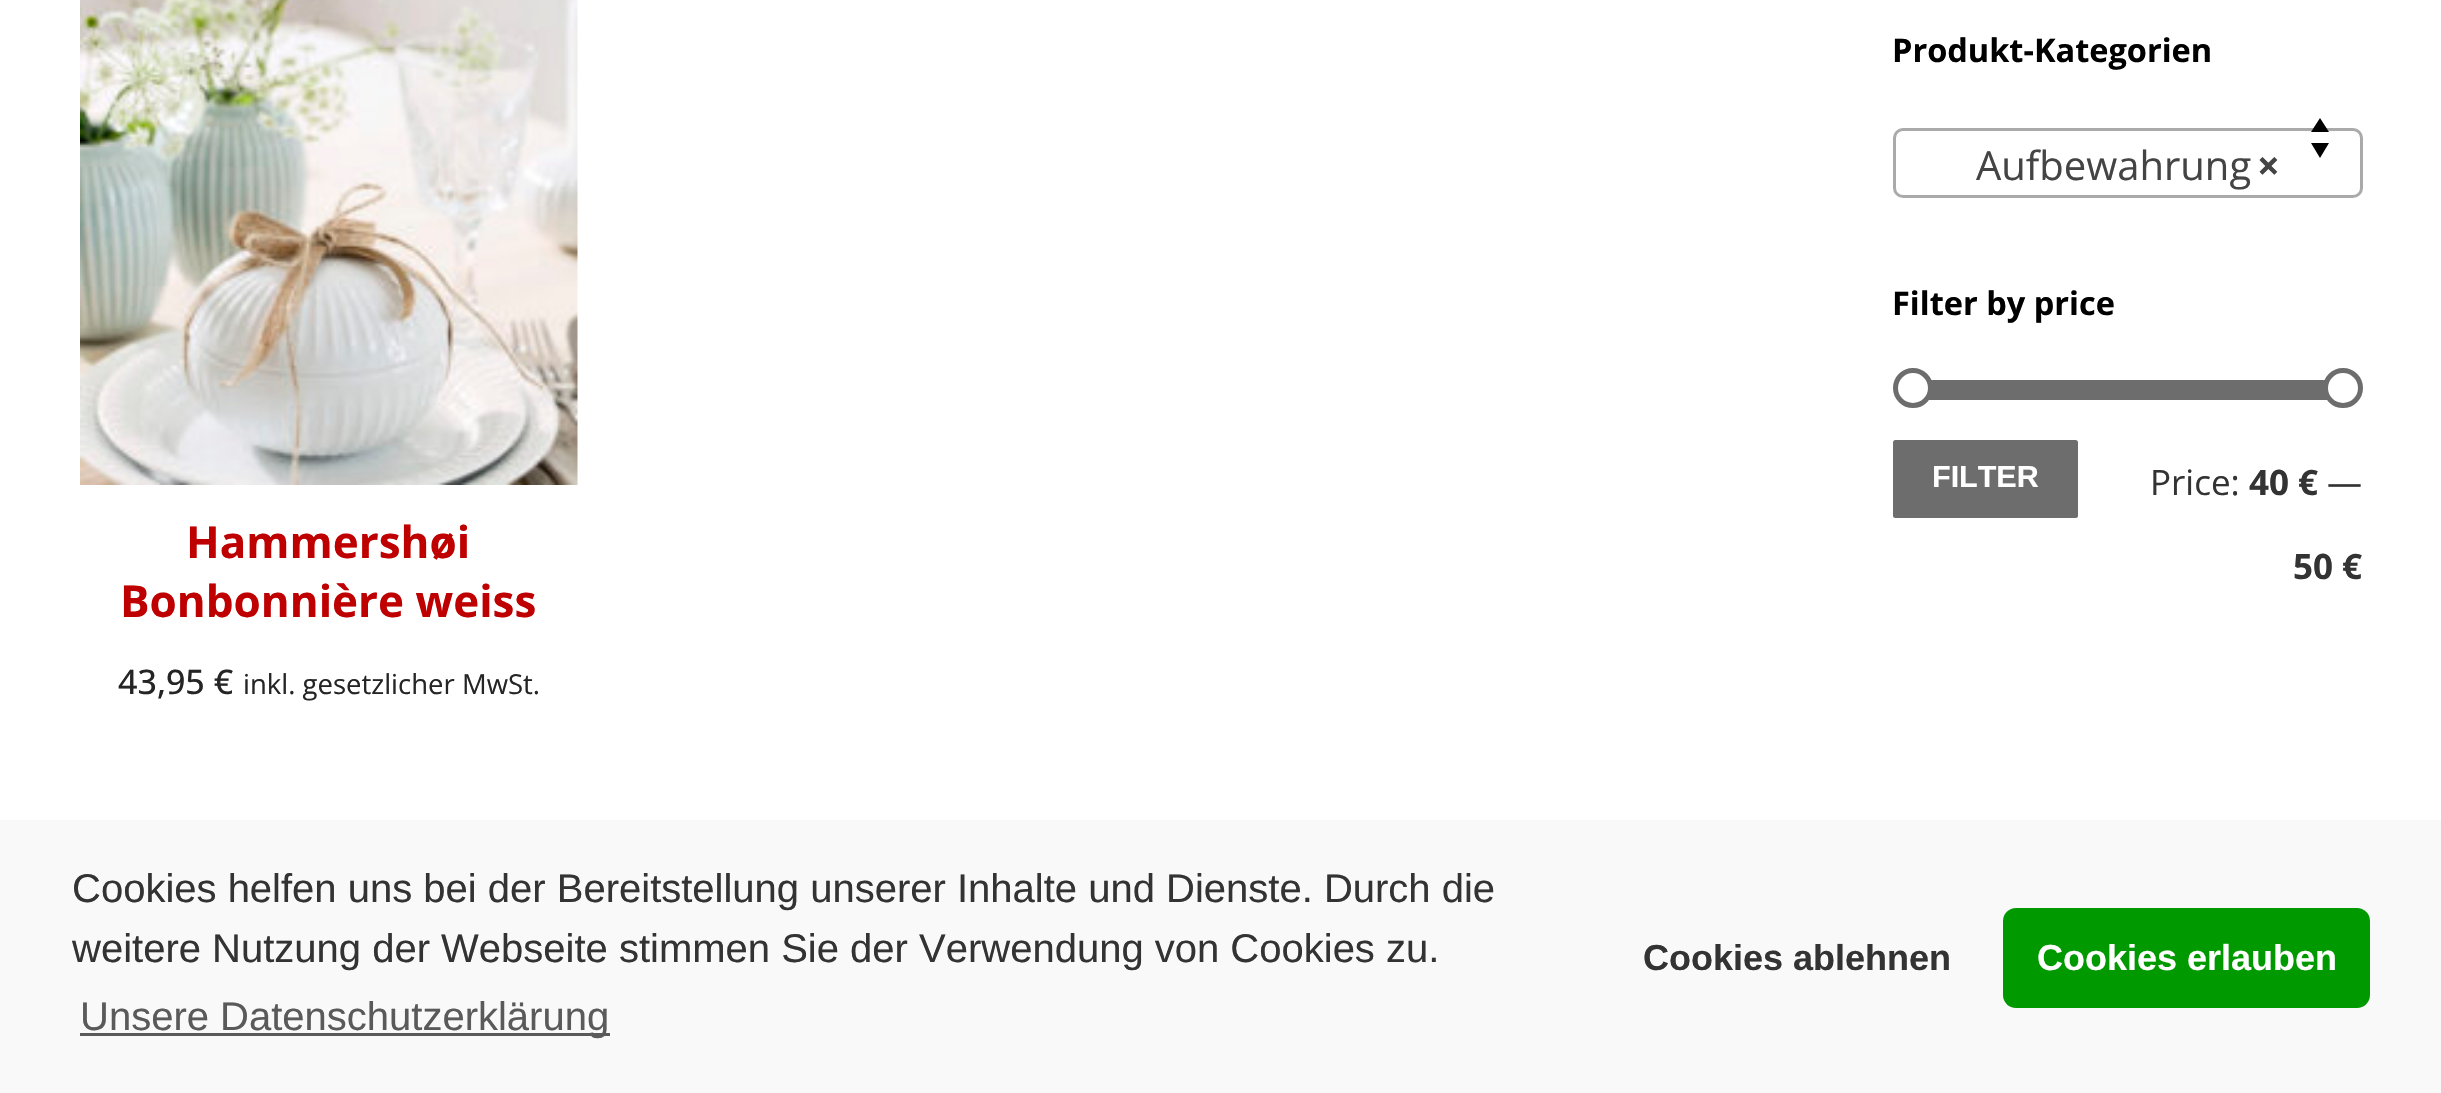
static SkFont makeFont(const char* family, int weight, float size, bool italic = false) {
  SkFontStyle style(weight, SkFontStyle::kNormal_Width,
    italic ? SkFontStyle::kItalic_Slant : SkFontStyle::kUpright_Slant);
  SkFont result(fontMgr->matchFamilyStyle(family, style), size);
  result.setSubpixel(true);
  return result;
}

static void text(SkCanvas* c, const char* s, float x, float y, const SkFont& font, SkColor color) {
  SkPaint ink(SkColor4f::FromColor(color));
  ink.setAntiAlias(true);
  c->drawString(s, x, y, font, ink);
}

static void box(SkCanvas* c, float l, float t, float r, float b, SkColor color) {
  SkPaint ink(SkColor4f::FromColor(color));
  ink.setAntiAlias(true);
  c->drawRect(SkRect::MakeLTRB(l, t, r, b), ink);
}

static void roundBox(SkCanvas* c, float l, float t, float r, float b, float radius, SkColor color) {
  SkPaint ink(SkColor4f::FromColor(color));
  ink.setAntiAlias(true);
  c->drawRoundRect(SkRect::MakeLTRB(l, t, r, b), radius, radius, ink);
}

static void picture(SkCanvas* c, const char* path, float l, float t, float r, float b) {
  auto image = SkImages::DeferredFromEncodedData(SkData::MakeFromFileName(path));
  c->drawImageRect(image, SkRect::MakeLTRB(l, t, r, b), SkSamplingOptions());
}

void draw(SkCanvas* c) {
  SkPaint paint;
  paint.setAntiAlias(true);
  c->clear(0xffffffff);
  SkFont face1 = makeFont("Open Sans", 700, 32.5f);
  text(c, "Produkt-Kategorien", 1892, 62, face1, 0xff000000);
  paint.setStyle(SkPaint::kStroke_Style);
  paint.setStrokeWidth(3);
  paint.setColor(0xffaaaaaa);
  c->drawRoundRect(SkRect::MakeLTRB(1894.5f, 129.5f, 2361.5f, 196.5f), 8.5f, 8.5f, paint);
  paint.setStyle(SkPaint::kFill_Style);
  paint.setColor(0xff000000);
  c->drawPath(SkPathBuilder().moveTo(2320, 118).lineTo(2311, 132).lineTo(2329, 132).close().moveTo(2320, 158).lineTo(2329, 143).lineTo(2311, 143).close().detach(), paint);
  SkFont face2 = makeFont("Open Sans", 400, 40);
  text(c, "Aufbewahrung", 1976, 180, face2, 0xff444444);
  SkFont face3 = makeFont("Open Sans", 700, 40);
  text(c, "×", 2257, 180, face3, 0xff444444);
  text(c, "Filter by price", 1892, 315, face1, 0xff000000);
  box(c, 1929, 380, 2327, 400, 0xff6d6d6d);
  paint.setColor(0xffffffff);
  c->drawCircle(1913, 388, 17.5f, paint);
  paint.setStyle(SkPaint::kStroke_Style);
  paint.setStrokeWidth(5);
  paint.setColor(0xff6d6d6d);
  c->drawCircle(1913, 388, 17.5f, paint);
  paint.setStyle(SkPaint::kFill_Style);
  paint.setColor(0xffffffff);
  c->drawCircle(2343, 388, 17.5f, paint);
  paint.setStyle(SkPaint::kStroke_Style);
  paint.setColor(0xff6d6d6d);
  c->drawCircle(2343, 388, 17.5f, paint);
  roundBox(c, 1893, 440, 2078, 518, 2.5f, 0xff6d6d6d);
  SkFont face4 = makeFont("Liberation Sans", 700, 30.5f);
  text(c, "FILTER", 1932, 487, face4, 0xffffffff);
  SkFont face5 = makeFont("Open Sans", 400, 35);
  text(c, "Price:", 2150, 495, face5, 0xff333333);
  SkFont face6 = makeFont("Open Sans", 700, 35);
  text(c, "40 €", 2249, 495, face6, 0xff333333);
  text(c, "—", 2327, 495, face5, 0xff333333);
  text(c, "50 €", 2293, 579, face6, 0xff333333);
  picture(c, "img_01.png", 80, 0, 578, 485);
  SkFont face7 = makeFont("Open Sans", 700, 44);
  text(c, "Hammershøi", 186, 558, face7, 0xffbf0000);
  text(c, "Bonbonnière weiss", 120, 617, face7, 0xffbf0000);
  SkFont face8 = makeFont("Open Sans", 500, 34);
  text(c, "43,95 €", 118, 694, face8, 0xff252525);
  SkFont face9 = makeFont("Open Sans", 400, 27.5f);
  text(c, "inkl. gesetzlicher MwSt.", 243, 694, face9, 0xff252525);
  box(c, 0, 820, 2441, 1093, 0xfff9f9f9);
  SkFont face10 = makeFont("Liberation Sans", 400, 40);
  text(c, "Cookies helfen uns bei der Bereitstellung unserer Inhalte und Dienste. Durch die", 72, 902, face10, 0xff333333);
  text(c, "weitere Nutzung der Webseite stimmen Sie der Verwendung von Cookies zu.", 72, 962, face10, 0xff333333);
  box(c, 80, 1033, 610, 1036, 0xff5b5a5a);
  text(c, "Unsere Datenschutzerklärung", 80, 1030, face10, 0xff5b5a5a);
  SkFont face11 = makeFont("Liberation Sans", 700, 36);
  text(c, "Cookies ablehnen", 1643, 970, face11, 0xff333333);
  roundBox(c, 2003, 908, 2370, 1008, 13, 0xff009a00);
  text(c, "Cookies erlauben", 2037, 970, face11, 0xffffffff);
}
